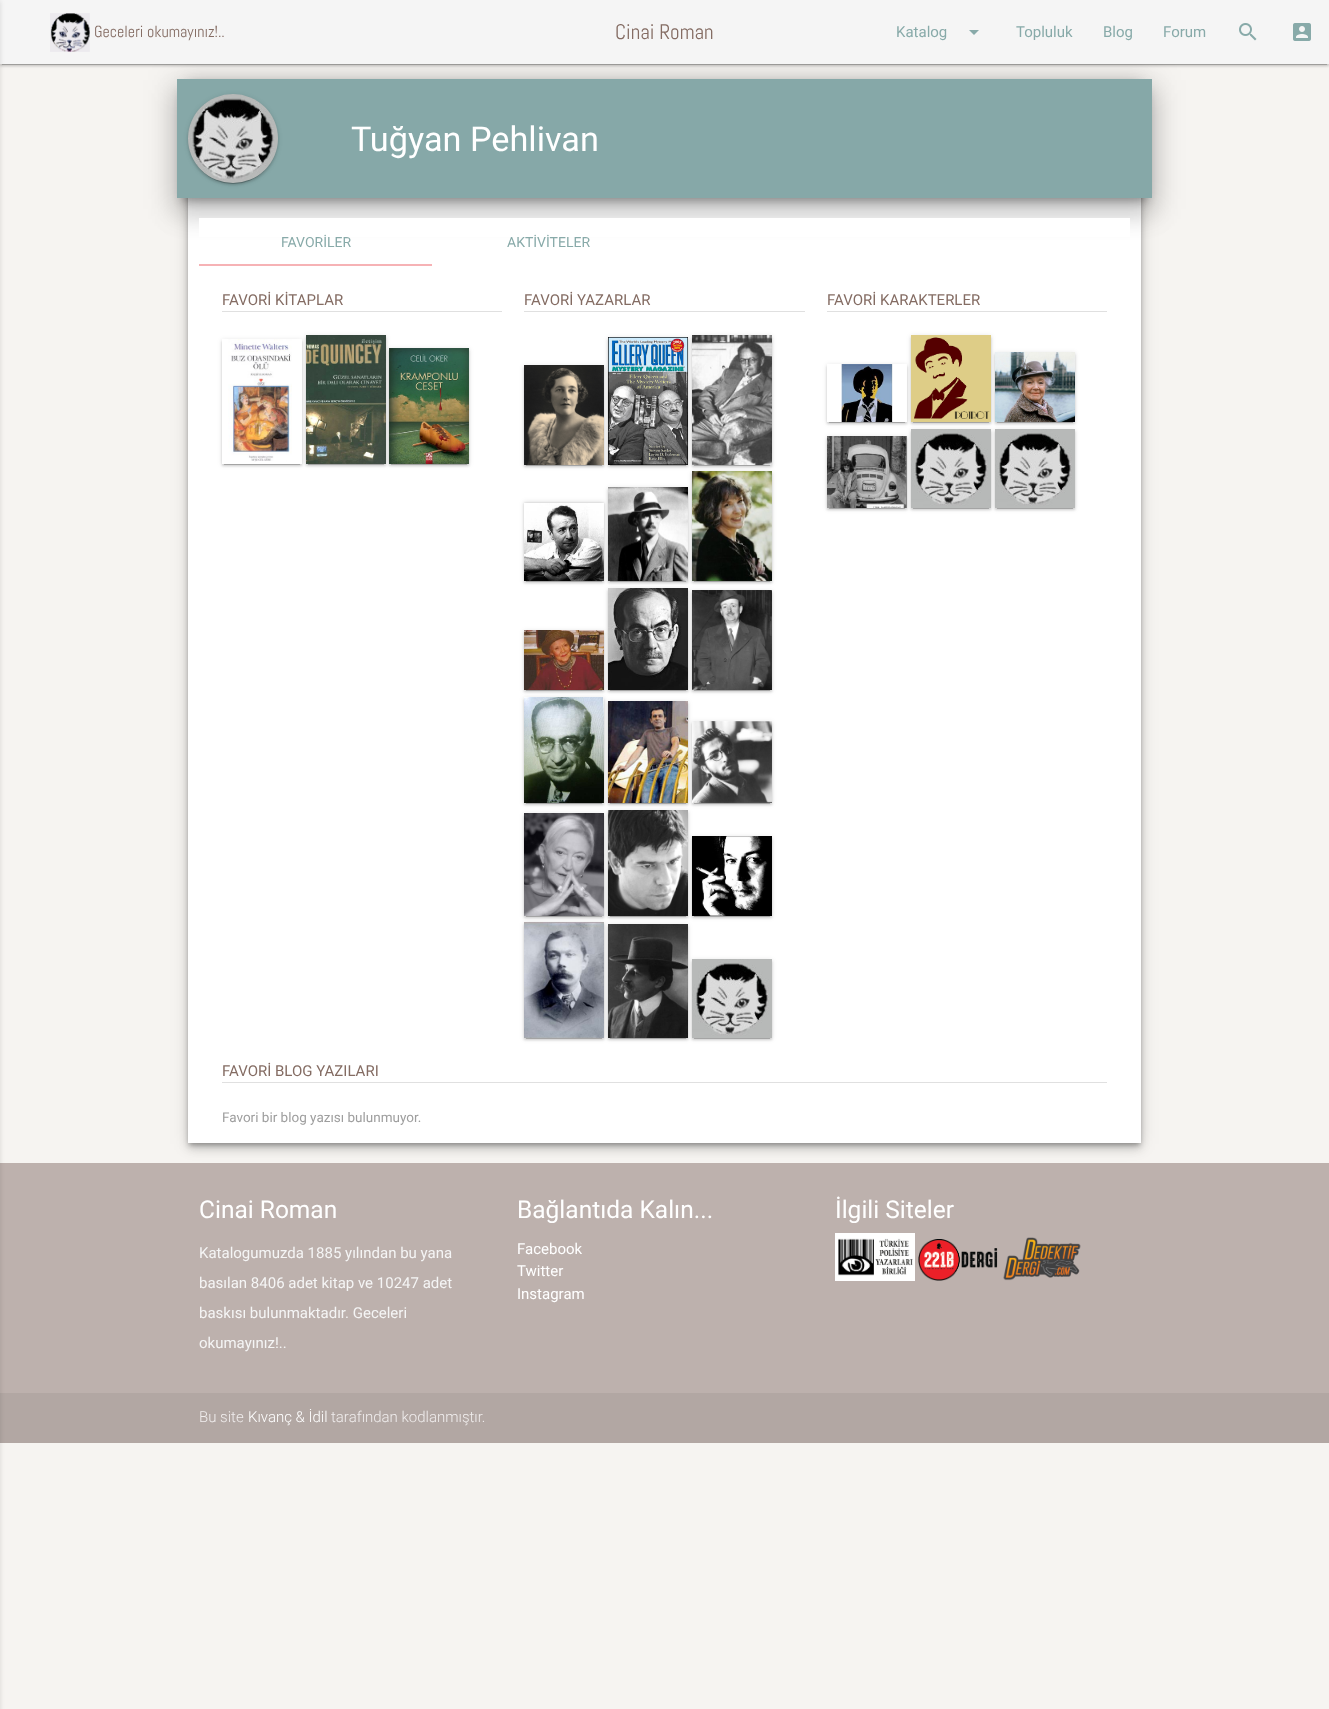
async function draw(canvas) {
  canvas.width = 1329;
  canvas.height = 1709;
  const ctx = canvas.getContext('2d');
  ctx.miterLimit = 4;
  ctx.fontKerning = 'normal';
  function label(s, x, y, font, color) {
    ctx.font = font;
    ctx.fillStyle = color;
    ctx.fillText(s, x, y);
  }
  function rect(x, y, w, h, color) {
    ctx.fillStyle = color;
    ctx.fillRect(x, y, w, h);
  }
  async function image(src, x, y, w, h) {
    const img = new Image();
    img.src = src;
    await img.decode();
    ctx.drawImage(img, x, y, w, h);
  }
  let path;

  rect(0, 0, 1329, 1709, '#f6f4f1');
  ctx.fillStyle = '#00000033';
  ctx.filter = 'blur(0.5px)';
  ctx.beginPath();
  ctx.rect(2, 5, 1325, 60);
  ctx.fill();
  ctx.filter = 'none';
  ctx.fillStyle = '#0000001f';
  ctx.filter = 'blur(2.5px)';
  ctx.beginPath();
  ctx.rect(0, 1, 1329, 64);
  ctx.fill();
  ctx.filter = 'none';
  ctx.fillStyle = '#00000024';
  ctx.filter = 'blur(1px)';
  ctx.beginPath();
  ctx.rect(0, 2, 1329, 64);
  ctx.fill();
  ctx.filter = 'none';
  ctx.fillStyle = '#0000001f';
  ctx.filter = 'blur(9px)';
  ctx.beginPath();
  ctx.rect(188, 80, 953, 1064);
  ctx.fill();
  ctx.filter = 'none';
  ctx.fillStyle = '#0000004d';
  ctx.filter = 'blur(2.5px)';
  ctx.beginPath();
  ctx.rect(189, 83, 951, 1062);
  ctx.fill();
  ctx.filter = 'none';
  ctx.fillStyle = '#00000024';
  ctx.filter = 'blur(5px)';
  ctx.beginPath();
  ctx.rect(188, 85, 953, 1064);
  ctx.fill();
  ctx.filter = 'none';
  rect(188, 198, 953, 945, '#fff');
  ctx.fillStyle = '#0000001f';
  ctx.filter = 'blur(15px)';
  ctx.beginPath();
  ctx.rect(172, 80, 985, 129);
  ctx.fill();
  ctx.filter = 'none';
  ctx.fillStyle = '#00000024';
  ctx.filter = 'blur(12px)';
  ctx.beginPath();
  ctx.rect(175, 93, 979, 123);
  ctx.fill();
  ctx.filter = 'none';
  rect(0, 0, 1329, 64, '#f5f5f5');
  rect(0, 1163, 1329, 230, '#bdb1ad');
  rect(0, 1393, 1329, 50, '#b2a7a3');
  ctx.fillStyle = '#0000001f';
  ctx.filter = 'blur(2.5px)';
  ctx.beginPath();
  ctx.rect(-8, 1, 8, 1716);
  ctx.fill();
  ctx.filter = 'none';
  await image('assets/img1.png', 50, 13, 40, 39);
  label('Geceleri okumayınız!..', 94, 37, '16px Abel', '#846c63');
  label('Cinai Roman', 615, 39, '21px Abel', '#846c63');
  label('Katalog', 896, 37, '15px Roboto', '#88aaa9');
  path = new Path2D('M969 30H979L974 35Z');
  ctx.fill(path);
  label('Topluluk', 1016, 37, '15px Roboto', '#88aaa9');
  label('Blog', 1103, 37, '15px Roboto', '#88aaa9');
  label('Forum', 1163, 37, '15px Roboto', '#88aaa9');
  await image('assets/img2.png', 1239, 23, 18, 18);
  await image('assets/img3.png', 1293, 23, 18, 18);
  ctx.fillStyle = '#0000004d';
  ctx.filter = 'blur(5px)';
  ctx.beginPath();
  ctx.rect(182, 92, 965, 109);
  ctx.fill();
  ctx.filter = 'none';
  rect(177, 79, 975, 119, '#86a8a8');
  ctx.fillStyle = '#00000033';
  ctx.filter = 'blur(0.5px)';
  ctx.beginPath();
  ctx.roundRect(190, 99, 86, 85, 42.5);
  ctx.fill();
  ctx.filter = 'none';
  ctx.fillStyle = '#0000001f';
  ctx.filter = 'blur(2.5px)';
  ctx.beginPath();
  ctx.roundRect(188, 95, 90, 89, 44.5);
  ctx.fill();
  ctx.filter = 'none';
  ctx.fillStyle = '#00000024';
  ctx.filter = 'blur(1px)';
  ctx.beginPath();
  ctx.roundRect(188, 96, 90, 89, 44.5);
  ctx.fill();
  ctx.filter = 'none';
  await image('assets/img4.png', 188, 94, 90, 89);
  label('Tuğyan Pehlivan', 351, 151, '34.25px Roboto', '#fff');
  rect(199, 218, 931, 19, '#fff');
  label('FAVORİLER', 281, 247, '14px Roboto', '#88aaa9');
  label('AKTİVİTELER', 507, 247, '14px Roboto', '#88aaa9');
  rect(199, 264, 233, 2, '#f6b2b5');
  label('FAVORİ KİTAPLAR', 222, 305, '15px Roboto', '#846c63');
  rect(222, 311, 280, 1, '#e0e0e0');
  ctx.save();
  path = new Path2D('M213 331H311V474H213ZM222 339H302V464H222Z');
  ctx.clip(path, 'evenodd');
  ctx.fillStyle = '#0000001f';
  ctx.filter = 'blur(2.5px)';
  ctx.beginPath();
  ctx.rect(222, 340, 80, 125);
  ctx.fill();
  ctx.filter = 'none';
  ctx.restore();
  ctx.fillStyle = '#0000001f';
  ctx.filter = 'blur(2.5px)';
  ctx.beginPath();
  ctx.rect(306, 336, 80, 129);
  ctx.fill();
  ctx.filter = 'none';
  ctx.fillStyle = '#00000024';
  ctx.filter = 'blur(1px)';
  ctx.beginPath();
  ctx.rect(306, 337, 80, 129);
  ctx.fill();
  ctx.filter = 'none';
  ctx.save();
  path = new Path2D('M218 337H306V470H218ZM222 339H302V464H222Z');
  ctx.clip(path, 'evenodd');
  ctx.filter = 'blur(1px)';
  ctx.beginPath();
  ctx.rect(222, 341, 80, 125);
  ctx.fill();
  ctx.filter = 'none';
  ctx.restore();
  ctx.fillStyle = '#00000033';
  ctx.filter = 'blur(0.5px)';
  ctx.beginPath();
  ctx.rect(308, 340, 76, 125);
  ctx.fill();
  ctx.filter = 'none';
  await image('assets/img5.png', 306, 335, 80, 129);
  ctx.save();
  ctx.beginPath();
  ctx.rect(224, 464, 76, 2);
  ctx.clip();
  ctx.filter = 'blur(0.5px)';
  ctx.beginPath();
  ctx.rect(224, 344, 76, 121);
  ctx.fill();
  ctx.filter = 'none';
  ctx.restore();
  await image('assets/img6.png', 228, 339, 64, 123);
  ctx.fillStyle = '#0000001f';
  ctx.filter = 'blur(2.5px)';
  ctx.beginPath();
  ctx.rect(389, 349, 80, 116);
  ctx.fill();
  ctx.filter = 'none';
  ctx.fillStyle = '#00000024';
  ctx.filter = 'blur(1px)';
  ctx.beginPath();
  ctx.rect(389, 350, 80, 116);
  ctx.fill();
  ctx.filter = 'none';
  ctx.fillStyle = '#00000033';
  ctx.filter = 'blur(0.5px)';
  ctx.beginPath();
  ctx.rect(391, 353, 76, 112);
  ctx.fill();
  ctx.filter = 'none';
  await image('assets/img7.png', 389, 348, 80, 116);
  label('FAVORİ YAZARLAR', 524, 305, '15px Roboto', '#846c63');
  rect(524, 311, 281, 1, '#e0e0e0');
  ctx.fillStyle = '#0000001f';
  ctx.filter = 'blur(2.5px)';
  ctx.beginPath();
  ctx.rect(524, 366, 80, 100);
  ctx.fill();
  ctx.filter = 'none';
  ctx.fillStyle = '#00000024';
  ctx.filter = 'blur(1px)';
  ctx.beginPath();
  ctx.rect(524, 367, 80, 100);
  ctx.fill();
  ctx.filter = 'none';
  ctx.fillStyle = '#00000033';
  ctx.filter = 'blur(0.5px)';
  ctx.beginPath();
  ctx.rect(526, 370, 76, 96);
  ctx.fill();
  ctx.filter = 'none';
  await image('assets/img10.png', 524, 365, 80, 100);
  ctx.fillStyle = '#0000001f';
  ctx.filter = 'blur(2.5px)';
  ctx.beginPath();
  ctx.rect(608, 338, 80, 128);
  ctx.fill();
  ctx.filter = 'none';
  ctx.fillStyle = '#00000024';
  ctx.filter = 'blur(1px)';
  ctx.beginPath();
  ctx.rect(608, 339, 80, 128);
  ctx.fill();
  ctx.filter = 'none';
  ctx.fillStyle = '#00000033';
  ctx.filter = 'blur(0.5px)';
  ctx.beginPath();
  ctx.rect(610, 342, 76, 124);
  ctx.fill();
  ctx.filter = 'none';
  await image('assets/img8.png', 608, 337, 80, 128);
  ctx.fillStyle = '#0000001f';
  ctx.filter = 'blur(2.5px)';
  ctx.beginPath();
  ctx.rect(692, 336, 80, 130);
  ctx.fill();
  ctx.filter = 'none';
  ctx.fillStyle = '#00000024';
  ctx.filter = 'blur(1px)';
  ctx.beginPath();
  ctx.rect(692, 337, 80, 130);
  ctx.fill();
  ctx.filter = 'none';
  ctx.fillStyle = '#00000033';
  ctx.filter = 'blur(0.5px)';
  ctx.beginPath();
  ctx.rect(694, 340, 76, 126);
  ctx.fill();
  ctx.filter = 'none';
  await image('assets/img9.png', 692, 335, 80, 130);
  ctx.fillStyle = '#0000001f';
  ctx.filter = 'blur(2.5px)';
  ctx.beginPath();
  ctx.rect(524, 502, 80, 80);
  ctx.fill();
  ctx.filter = 'none';
  ctx.fillStyle = '#00000024';
  ctx.filter = 'blur(1px)';
  ctx.beginPath();
  ctx.rect(524, 503, 80, 80);
  ctx.fill();
  ctx.filter = 'none';
  ctx.fillStyle = '#00000033';
  ctx.filter = 'blur(0.5px)';
  ctx.beginPath();
  ctx.rect(526, 506, 76, 76);
  ctx.fill();
  ctx.filter = 'none';
  await image('assets/img13.png', 524, 503, 80, 78);
  ctx.fillStyle = '#0000001f';
  ctx.filter = 'blur(2.5px)';
  ctx.beginPath();
  ctx.rect(608, 488, 80, 94);
  ctx.fill();
  ctx.filter = 'none';
  ctx.fillStyle = '#00000024';
  ctx.filter = 'blur(1px)';
  ctx.beginPath();
  ctx.rect(608, 489, 80, 94);
  ctx.fill();
  ctx.filter = 'none';
  ctx.fillStyle = '#00000033';
  ctx.filter = 'blur(0.5px)';
  ctx.beginPath();
  ctx.rect(610, 492, 76, 90);
  ctx.fill();
  ctx.filter = 'none';
  await image('assets/img12.png', 608, 487, 80, 94);
  ctx.fillStyle = '#0000001f';
  ctx.filter = 'blur(2.5px)';
  ctx.beginPath();
  ctx.rect(692, 472, 80, 110);
  ctx.fill();
  ctx.filter = 'none';
  ctx.fillStyle = '#00000024';
  ctx.filter = 'blur(1px)';
  ctx.beginPath();
  ctx.rect(692, 473, 80, 110);
  ctx.fill();
  ctx.filter = 'none';
  ctx.fillStyle = '#00000033';
  ctx.filter = 'blur(0.5px)';
  ctx.beginPath();
  ctx.rect(694, 476, 76, 106);
  ctx.fill();
  ctx.filter = 'none';
  await image('assets/img11.png', 692, 471, 80, 110);
  ctx.fillStyle = '#0000001f';
  ctx.filter = 'blur(2.5px)';
  ctx.beginPath();
  ctx.rect(524, 631, 80, 60);
  ctx.fill();
  ctx.filter = 'none';
  ctx.fillStyle = '#00000024';
  ctx.filter = 'blur(1px)';
  ctx.beginPath();
  ctx.rect(524, 632, 80, 60);
  ctx.fill();
  ctx.filter = 'none';
  ctx.fillStyle = '#00000033';
  ctx.filter = 'blur(0.5px)';
  ctx.beginPath();
  ctx.rect(526, 635, 76, 56);
  ctx.fill();
  ctx.filter = 'none';
  await image('assets/img16.png', 524, 630, 80, 60);
  ctx.fillStyle = '#0000001f';
  ctx.filter = 'blur(2.5px)';
  ctx.beginPath();
  ctx.rect(608, 589, 80, 102);
  ctx.fill();
  ctx.filter = 'none';
  ctx.fillStyle = '#00000024';
  ctx.filter = 'blur(1px)';
  ctx.beginPath();
  ctx.rect(608, 590, 80, 102);
  ctx.fill();
  ctx.filter = 'none';
  ctx.fillStyle = '#00000033';
  ctx.filter = 'blur(0.5px)';
  ctx.beginPath();
  ctx.rect(610, 593, 76, 98);
  ctx.fill();
  ctx.filter = 'none';
  await image('assets/img14.png', 608, 588, 80, 102);
  ctx.fillStyle = '#0000001f';
  ctx.filter = 'blur(2.5px)';
  ctx.beginPath();
  ctx.rect(692, 591, 80, 100);
  ctx.fill();
  ctx.filter = 'none';
  ctx.fillStyle = '#00000024';
  ctx.filter = 'blur(1px)';
  ctx.beginPath();
  ctx.rect(692, 592, 80, 100);
  ctx.fill();
  ctx.filter = 'none';
  ctx.fillStyle = '#00000033';
  ctx.filter = 'blur(0.5px)';
  ctx.beginPath();
  ctx.rect(694, 595, 76, 96);
  ctx.fill();
  ctx.filter = 'none';
  await image('assets/img15.png', 692, 590, 80, 100);
  ctx.fillStyle = '#0000001f';
  ctx.filter = 'blur(2.5px)';
  ctx.beginPath();
  ctx.rect(524, 698, 80, 106);
  ctx.fill();
  ctx.filter = 'none';
  ctx.fillStyle = '#00000024';
  ctx.filter = 'blur(1px)';
  ctx.beginPath();
  ctx.rect(524, 699, 80, 106);
  ctx.fill();
  ctx.filter = 'none';
  ctx.fillStyle = '#00000033';
  ctx.filter = 'blur(0.5px)';
  ctx.beginPath();
  ctx.rect(526, 702, 76, 102);
  ctx.fill();
  ctx.filter = 'none';
  await image('assets/img17.png', 524, 697, 80, 106);
  ctx.fillStyle = '#0000001f';
  ctx.filter = 'blur(2.5px)';
  ctx.beginPath();
  ctx.rect(608, 702, 80, 102);
  ctx.fill();
  ctx.filter = 'none';
  ctx.fillStyle = '#00000024';
  ctx.filter = 'blur(1px)';
  ctx.beginPath();
  ctx.rect(608, 703, 80, 102);
  ctx.fill();
  ctx.filter = 'none';
  ctx.fillStyle = '#00000033';
  ctx.filter = 'blur(0.5px)';
  ctx.beginPath();
  ctx.rect(610, 706, 76, 98);
  ctx.fill();
  ctx.filter = 'none';
  await image('assets/img18.png', 608, 701, 80, 102);
  ctx.fillStyle = '#0000001f';
  ctx.filter = 'blur(2.5px)';
  ctx.beginPath();
  ctx.rect(692, 722, 80, 82);
  ctx.fill();
  ctx.filter = 'none';
  ctx.fillStyle = '#00000024';
  ctx.filter = 'blur(1px)';
  ctx.beginPath();
  ctx.rect(692, 723, 80, 82);
  ctx.fill();
  ctx.filter = 'none';
  ctx.fillStyle = '#00000033';
  ctx.filter = 'blur(0.5px)';
  ctx.beginPath();
  ctx.rect(694, 726, 76, 78);
  ctx.fill();
  ctx.filter = 'none';
  await image('assets/img19.png', 692, 721, 80, 82);
  ctx.fillStyle = '#0000001f';
  ctx.filter = 'blur(2.5px)';
  ctx.beginPath();
  ctx.rect(524, 814, 80, 103);
  ctx.fill();
  ctx.filter = 'none';
  ctx.fillStyle = '#00000024';
  ctx.filter = 'blur(1px)';
  ctx.beginPath();
  ctx.rect(524, 815, 80, 103);
  ctx.fill();
  ctx.filter = 'none';
  ctx.fillStyle = '#00000033';
  ctx.filter = 'blur(0.5px)';
  ctx.beginPath();
  ctx.rect(526, 818, 76, 99);
  ctx.fill();
  ctx.filter = 'none';
  await image('assets/img21.png', 524, 813, 80, 103);
  ctx.fillStyle = '#0000001f';
  ctx.filter = 'blur(2.5px)';
  ctx.beginPath();
  ctx.rect(608, 811, 80, 106);
  ctx.fill();
  ctx.filter = 'none';
  ctx.fillStyle = '#00000024';
  ctx.filter = 'blur(1px)';
  ctx.beginPath();
  ctx.rect(608, 812, 80, 106);
  ctx.fill();
  ctx.filter = 'none';
  ctx.fillStyle = '#00000033';
  ctx.filter = 'blur(0.5px)';
  ctx.beginPath();
  ctx.rect(610, 815, 76, 102);
  ctx.fill();
  ctx.filter = 'none';
  await image('assets/img20.png', 608, 810, 80, 106);
  ctx.fillStyle = '#0000001f';
  ctx.filter = 'blur(2.5px)';
  ctx.beginPath();
  ctx.rect(692, 837, 80, 80);
  ctx.fill();
  ctx.filter = 'none';
  ctx.fillStyle = '#00000024';
  ctx.filter = 'blur(1px)';
  ctx.beginPath();
  ctx.rect(692, 838, 80, 80);
  ctx.fill();
  ctx.filter = 'none';
  ctx.fillStyle = '#00000033';
  ctx.filter = 'blur(0.5px)';
  ctx.beginPath();
  ctx.rect(694, 841, 76, 76);
  ctx.fill();
  ctx.filter = 'none';
  await image('assets/img22.png', 692, 836, 80, 80);
  ctx.fillStyle = '#0000001f';
  ctx.filter = 'blur(2.5px)';
  ctx.beginPath();
  ctx.rect(524, 923, 80, 116);
  ctx.fill();
  ctx.filter = 'none';
  ctx.fillStyle = '#00000024';
  ctx.filter = 'blur(1px)';
  ctx.beginPath();
  ctx.rect(524, 924, 80, 116);
  ctx.fill();
  ctx.filter = 'none';
  ctx.fillStyle = '#00000033';
  ctx.filter = 'blur(0.5px)';
  ctx.beginPath();
  ctx.rect(526, 927, 76, 112);
  ctx.fill();
  ctx.filter = 'none';
  await image('assets/img23.png', 524, 922, 80, 116);
  ctx.fillStyle = '#0000001f';
  ctx.filter = 'blur(2.5px)';
  ctx.beginPath();
  ctx.rect(608, 925, 80, 114);
  ctx.fill();
  ctx.filter = 'none';
  ctx.fillStyle = '#00000024';
  ctx.filter = 'blur(1px)';
  ctx.beginPath();
  ctx.rect(608, 926, 80, 114);
  ctx.fill();
  ctx.filter = 'none';
  ctx.fillStyle = '#00000033';
  ctx.filter = 'blur(0.5px)';
  ctx.beginPath();
  ctx.rect(610, 929, 76, 110);
  ctx.fill();
  ctx.filter = 'none';
  await image('assets/img24.png', 608, 924, 80, 114);
  ctx.fillStyle = '#0000001f';
  ctx.filter = 'blur(2.5px)';
  ctx.beginPath();
  ctx.rect(692, 960, 80, 79);
  ctx.fill();
  ctx.filter = 'none';
  ctx.fillStyle = '#00000024';
  ctx.filter = 'blur(1px)';
  ctx.beginPath();
  ctx.rect(692, 961, 80, 79);
  ctx.fill();
  ctx.filter = 'none';
  ctx.fillStyle = '#00000033';
  ctx.filter = 'blur(0.5px)';
  ctx.beginPath();
  ctx.rect(694, 964, 76, 75);
  ctx.fill();
  ctx.filter = 'none';
  await image('assets/img25.png', 692, 959, 80, 79);
  label('FAVORİ KARAKTERLER', 827, 305, '15px Roboto', '#846c63');
  rect(827, 311, 280, 1, '#e0e0e0');
  ctx.fillStyle = '#0000001f';
  ctx.filter = 'blur(2.5px)';
  ctx.beginPath();
  ctx.rect(911, 336, 80, 87);
  ctx.fill();
  ctx.filter = 'none';
  ctx.fillStyle = '#00000024';
  ctx.filter = 'blur(1px)';
  ctx.beginPath();
  ctx.rect(911, 337, 80, 87);
  ctx.fill();
  ctx.filter = 'none';
  ctx.fillStyle = '#00000033';
  ctx.filter = 'blur(0.5px)';
  ctx.beginPath();
  ctx.rect(913, 340, 76, 83);
  ctx.fill();
  ctx.filter = 'none';
  ctx.save();
  path = new Path2D('M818 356H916V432H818ZM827 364H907V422H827Z');
  ctx.clip(path, 'evenodd');
  ctx.fillStyle = '#0000001f';
  ctx.filter = 'blur(2.5px)';
  ctx.beginPath();
  ctx.rect(827, 365, 80, 58);
  ctx.fill();
  ctx.filter = 'none';
  ctx.restore();
  await image('assets/img26.png', 911, 335, 80, 87);
  ctx.fillStyle = '#0000001f';
  ctx.filter = 'blur(2.5px)';
  ctx.beginPath();
  ctx.rect(995, 353, 80, 70);
  ctx.fill();
  ctx.filter = 'none';
  ctx.fillStyle = '#00000024';
  ctx.filter = 'blur(1px)';
  ctx.beginPath();
  ctx.rect(995, 354, 80, 70);
  ctx.fill();
  ctx.filter = 'none';
  ctx.fillStyle = '#00000033';
  ctx.filter = 'blur(0.5px)';
  ctx.beginPath();
  ctx.rect(997, 357, 76, 66);
  ctx.fill();
  ctx.filter = 'none';
  await image('assets/img27.png', 995, 352, 80, 70);
  ctx.save();
  path = new Path2D('M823 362H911V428H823ZM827 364H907V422H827Z');
  ctx.clip(path, 'evenodd');
  ctx.fillStyle = '#00000024';
  ctx.filter = 'blur(1px)';
  ctx.beginPath();
  ctx.rect(827, 366, 80, 58);
  ctx.fill();
  ctx.filter = 'none';
  ctx.restore();
  ctx.save();
  ctx.beginPath();
  ctx.rect(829, 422, 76, 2);
  ctx.clip();
  ctx.filter = 'blur(0.5px)';
  ctx.beginPath();
  ctx.rect(829, 369, 76, 54);
  ctx.fill();
  ctx.filter = 'none';
  ctx.restore();
  await image('assets/img28.png', 841, 364, 52, 58);
  ctx.fillStyle = '#0000001f';
  ctx.filter = 'blur(2.5px)';
  ctx.beginPath();
  ctx.rect(827, 437, 80, 72);
  ctx.fill();
  ctx.filter = 'none';
  ctx.fillStyle = '#00000024';
  ctx.filter = 'blur(1px)';
  ctx.beginPath();
  ctx.rect(827, 438, 80, 72);
  ctx.fill();
  ctx.filter = 'none';
  ctx.fillStyle = '#00000033';
  ctx.filter = 'blur(0.5px)';
  ctx.beginPath();
  ctx.rect(829, 441, 76, 68);
  ctx.fill();
  ctx.filter = 'none';
  await image('assets/img30.png', 827, 436, 80, 72);
  ctx.fillStyle = '#0000001f';
  ctx.filter = 'blur(2.5px)';
  ctx.beginPath();
  ctx.rect(911, 430, 80, 79);
  ctx.fill();
  ctx.filter = 'none';
  ctx.fillStyle = '#00000024';
  ctx.filter = 'blur(1px)';
  ctx.beginPath();
  ctx.rect(911, 431, 80, 79);
  ctx.fill();
  ctx.filter = 'none';
  ctx.fillStyle = '#00000033';
  ctx.filter = 'blur(0.5px)';
  ctx.beginPath();
  ctx.rect(913, 434, 76, 75);
  ctx.fill();
  ctx.filter = 'none';
  await image('assets/img29.png', 911, 429, 80, 79);
  ctx.fillStyle = '#0000001f';
  ctx.filter = 'blur(2.5px)';
  ctx.beginPath();
  ctx.rect(995, 430, 80, 79);
  ctx.fill();
  ctx.filter = 'none';
  ctx.fillStyle = '#00000024';
  ctx.filter = 'blur(1px)';
  ctx.beginPath();
  ctx.rect(995, 431, 80, 79);
  ctx.fill();
  ctx.filter = 'none';
  ctx.fillStyle = '#00000033';
  ctx.filter = 'blur(0.5px)';
  ctx.beginPath();
  ctx.rect(997, 434, 76, 75);
  ctx.fill();
  ctx.filter = 'none';
  await image('assets/img29.png', 995, 429, 80, 79);
  label('FAVORİ BLOG YAZILARI', 222, 1076, '15px Roboto', '#846c63');
  rect(222, 1082, 885, 1, '#e0e0e0');
  label('Favori bir blog yazısı bulunmuyor.', 222, 1122, '13.5px Roboto', '#9e9e9e');
  label('Cinai Roman', 199, 1218, '24.5px Roboto', '#fff');
  label('Katalogumuzda 1885 yılından bu yana', 199, 1258, '15px Roboto', '#f5f5f5');
  label('basılan 8406 adet kitap ve 10247 adet', 199, 1288, '15px Roboto', '#f5f5f5');
  label('baskısı bulunmaktadır. Geceleri', 199, 1318, '15px Roboto', '#f5f5f5');
  label('okumayınız!..', 199, 1348, '15px Roboto', '#f5f5f5');
  label('Bağlantıda Kalın...', 517, 1218, '24.5px Roboto', '#fff');
  label('Facebook', 517, 1254, '15px Roboto', '#fff');
  label('Twitter', 517, 1276, '15px Roboto', '#fff');
  label('Instagram', 517, 1299, '15px Roboto', '#fff');
  label('İlgili Siteler', 835, 1218, '24.5px Roboto', '#fff');
  await image('assets/img31.png', 835, 1233, 80, 48);
  await image('assets/img32.png', 918, 1239, 80, 42);
  await image('assets/img33.png', 1003, 1237, 78, 44);
  label('Bu site', 199, 1422, '300 15px Roboto', '#f0eded');
  label('Kıvanç & İdil', 248, 1422, '300 15px Roboto', '#fff');
  label('tarafından kodlanmıştır.', 331, 1422, '300 15px Roboto', '#f0eded');
}

draw(document.querySelector('canvas'));
